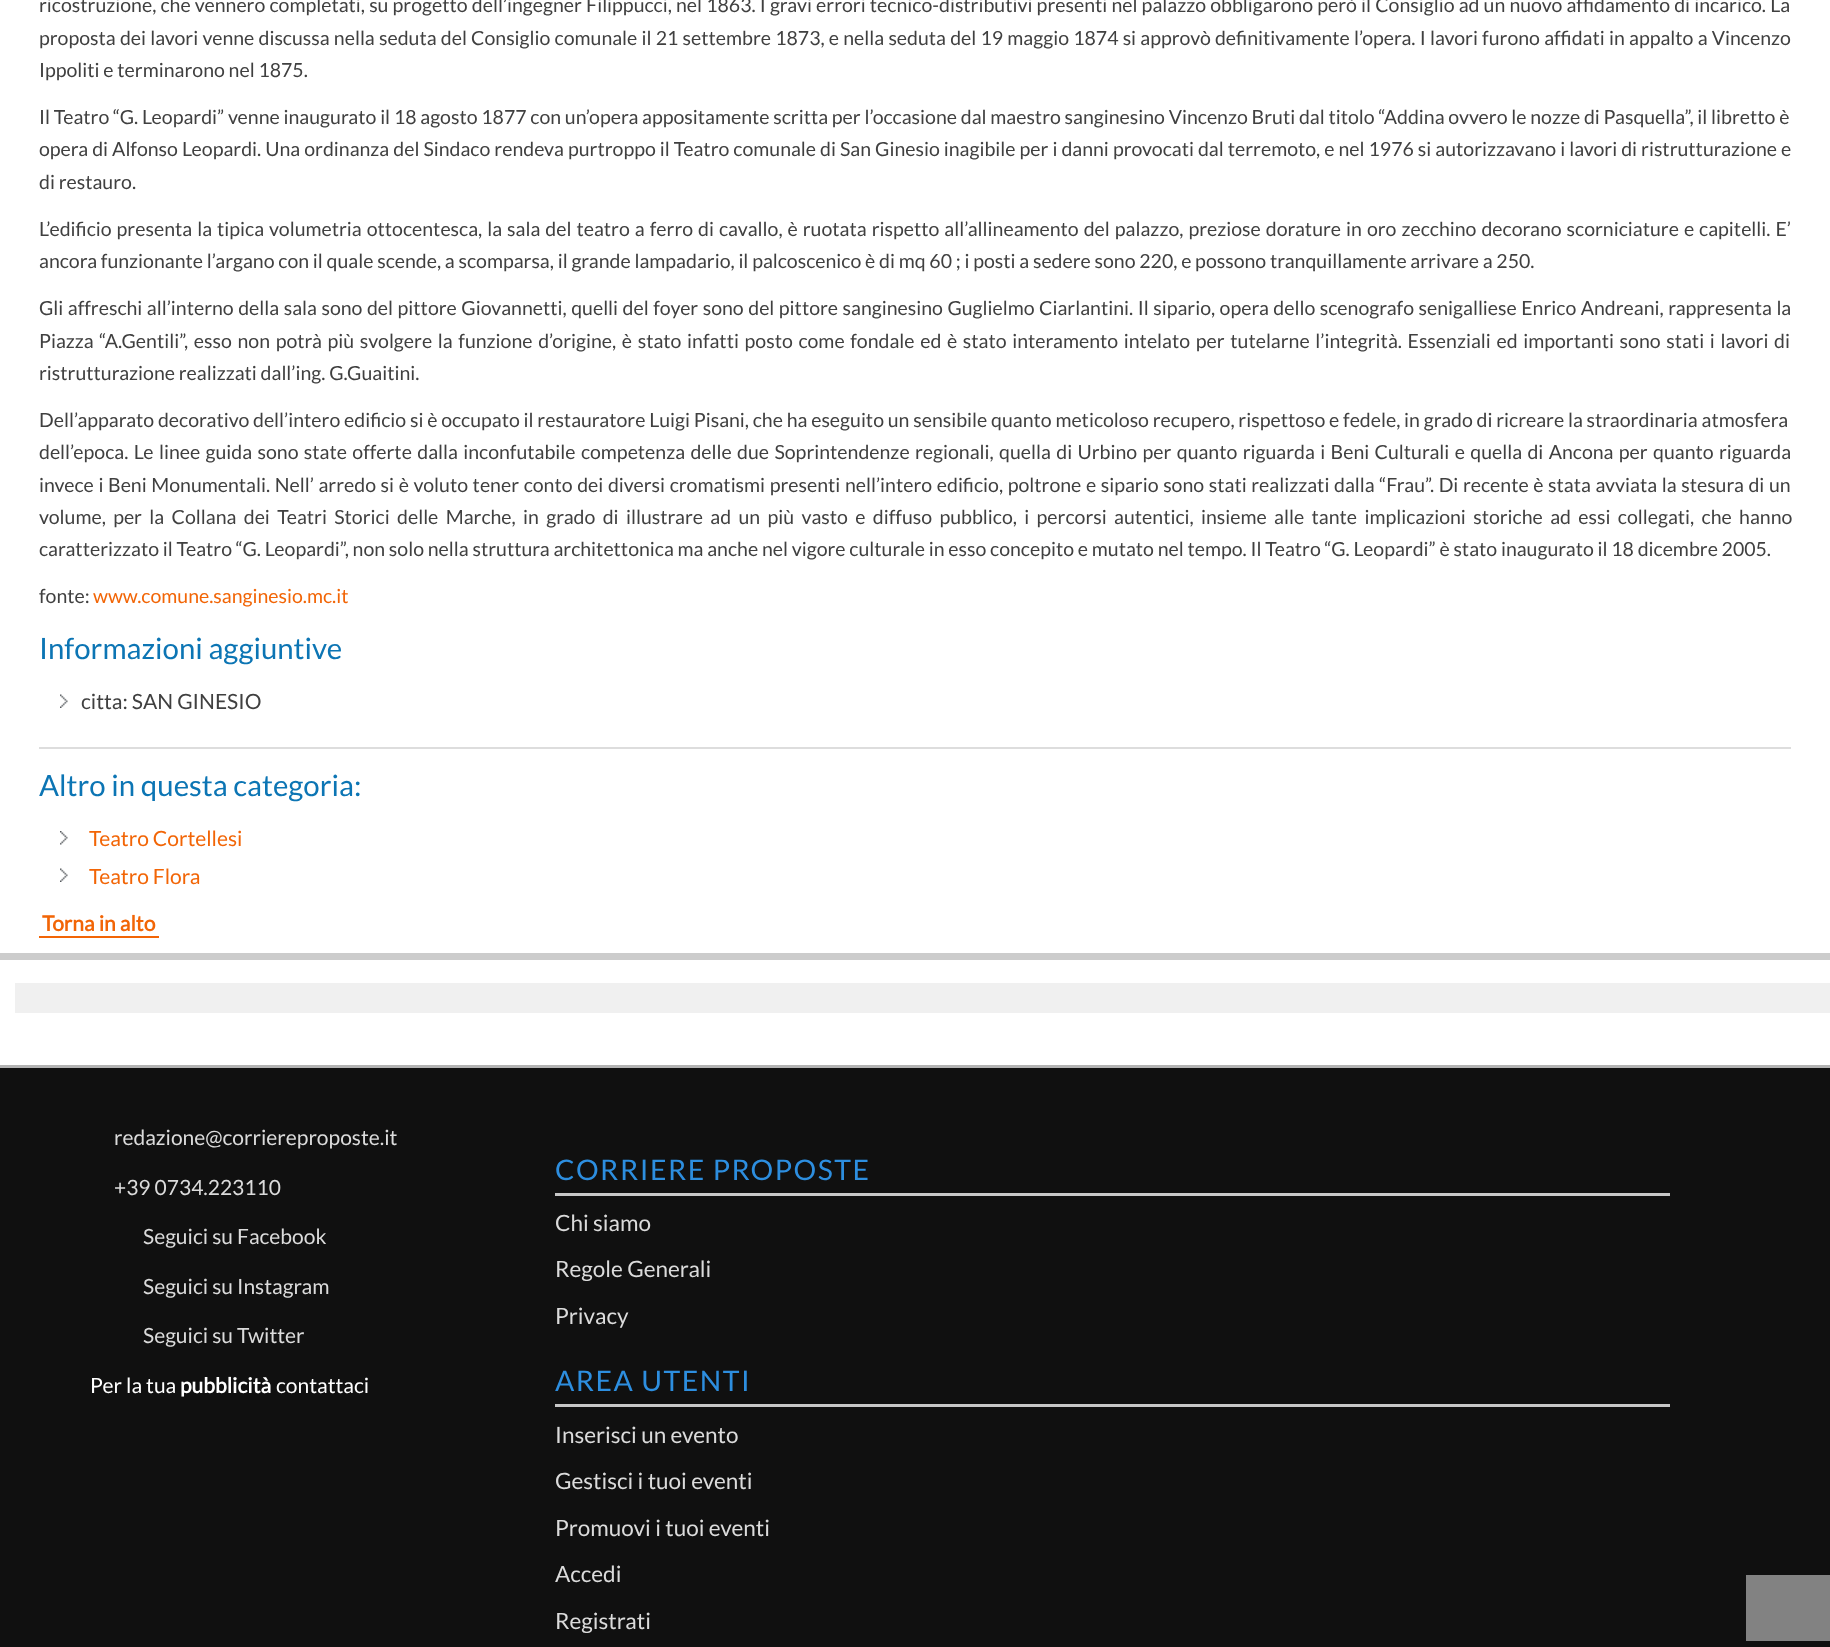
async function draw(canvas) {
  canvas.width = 1830;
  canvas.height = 1647;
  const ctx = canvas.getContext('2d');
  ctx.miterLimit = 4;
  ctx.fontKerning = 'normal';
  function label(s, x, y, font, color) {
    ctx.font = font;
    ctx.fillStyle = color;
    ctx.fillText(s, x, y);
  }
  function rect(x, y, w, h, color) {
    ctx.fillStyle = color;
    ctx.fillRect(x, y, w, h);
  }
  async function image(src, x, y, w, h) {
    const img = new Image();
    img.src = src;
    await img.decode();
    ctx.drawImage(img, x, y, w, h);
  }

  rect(0, 0, 1830, 1647, '#fff');
  rect(0, 953, 1830, 7, '#ccc');
  ctx.wordSpacing = '0.4px';
  label('ricostruzione, che vennero completati, su progetto dell’ingegner Filippucci, nel 1863. I gravi errori tecnico-distributivi presenti nel palazzo obbligarono però il Consiglio ad un nuovo affidamento di incarico. La', 39, 12, '19.5px Lato', '#404040');
  ctx.wordSpacing = '0.45px';
  label('proposta dei lavori venne discussa nella seduta del Consiglio comunale il 21 settembre 1873, e nella seduta del 19 maggio 1874 si approvò definitivamente l’opera. I lavori furono affidati in appalto a Vincenzo', 39, 45, '19.5px Lato', '#404040');
  ctx.wordSpacing = '0px';
  label('Ippoliti e terminarono nel 1875.', 39, 77, '19.5px Lato', '#404040');
  label('Il Teatro “G. Leopardi” venne inaugurato il 18 agosto 1877 con un’opera appositamente scritta per l’occasione dal maestro sanginesino Vincenzo Bruti dal titolo “Addina ovvero le nozze di Pasquella”, il libretto è', 39, 124, '19.5px Lato', '#404040');
  ctx.wordSpacing = '0.25px';
  label('opera di Alfonso Leopardi. Una ordinanza del Sindaco rendeva purtroppo il Teatro comunale di San Ginesio inagibile per i danni provocati dal terremoto, e nel 1976 si autorizzavano i lavori di ristrutturazione e', 39, 156, '19.5px Lato', '#404040');
  ctx.wordSpacing = '0px';
  label('di restauro.', 39, 189, '19.5px Lato', '#404040');
  ctx.wordSpacing = '1.25px';
  label('L’edificio presenta la tipica volumetria ottocentesca, la sala del teatro a ferro di cavallo, è ruotata rispetto all’allineamento del palazzo, preziose dorature in oro zecchino decorano scorniciature e capitelli. E’', 39, 236, '19.5px Lato', '#404040');
  ctx.wordSpacing = '0px';
  label('ancora funzionante l’argano con il quale scende, a scomparsa, il grande lampadario, il palcoscenico è di mq 60 ; i posti a sedere sono 220, e possono tranquillamente arrivare a 250.', 39, 268, '19.5px Lato', '#404040');
  ctx.wordSpacing = '0.75px';
  label('Gli affreschi all’interno della sala sono del pittore Giovannetti, quelli del foyer sono del pittore sanginesino Guglielmo Ciarlantini. Il sipario, opera dello scenografo senigalliese Enrico Andreani, rappresenta la', 39, 315, '19.5px Lato', '#404040');
  ctx.wordSpacing = '1.9px';
  label('Piazza “A.Gentili”, esso non potrà più svolgere la funzione d’origine, è stato infatti posto come fondale ed è stato interamento intelato per tutelarne l’integrità. Essenziali ed importanti sono stati i lavori di', 39, 348, '19.5px Lato', '#404040');
  ctx.wordSpacing = '0px';
  label('ristrutturazione realizzati dall’ing. G.Guaitini.', 39, 380, '19.5px Lato', '#404040');
  label('Dell’apparato decorativo dell’intero edificio si è occupato il restauratore Luigi Pisani, che ha eseguito un sensibile quanto meticoloso recupero, rispettoso e fedele, in grado di ricreare la straordinaria atmosfera', 39, 427, '19.5px Lato', '#404040');
  ctx.wordSpacing = '1.6px';
  label('dell’epoca. Le linee guida sono state offerte dalla inconfutabile competenza delle due Soprintendenze regionali, quella di Urbino per quanto riguarda i Beni Culturali e quella di Ancona per quanto riguarda', 39, 459, '19.5px Lato', '#404040');
  ctx.wordSpacing = '0.85px';
  label('invece i Beni Monumentali. Nell’ arredo si è voluto tener conto dei diversi cromatismi presenti nell’intero edificio, poltrone e sipario sono stati realizzati dalla “Frau”. Di recente è stata avviata la stesura di un', 39, 492, '19.5px Lato', '#404040');
  ctx.wordSpacing = '3.6px';
  label('volume, per la Collana dei Teatri Storici delle Marche, in grado di illustrare ad un più vasto e diffuso pubblico, i percorsi autentici, insieme alle tante implicazioni storiche ad essi collegati, che hanno', 39, 524, '19.5px Lato', '#404040');
  ctx.wordSpacing = '0px';
  label('caratterizzato il Teatro “G. Leopardi”, non solo nella struttura architettonica ma anche nel vigore culturale in esso concepito e mutato nel tempo. Il Teatro “G. Leopardi” è stato inaugurato il 18 dicembre 2005.', 39, 556, '19.5px Lato', '#404040');
  label('fonte:', 39, 603, '19.5px Lato', '#404040');
  label('www.comune.sanginesio.mc.it', 93, 603, '19.5px Lato', '#f26506');
  label('Informazioni aggiuntive', 39, 659, '29.4px Lato', '#0c75b4');
  await image('assets/img1.png', 60, 694, 8, 14);
  label('citta: SAN GINESIO', 81, 709, '21px Lato', '#404040');
  rect(39, 747, 1752, 2, '#ddd');
  label('Altro in questa categoria:', 39, 796, '29.4px Lato', '#0c75b4');
  await image('assets/img2.png', 60, 831, 8, 14);
  label('Teatro Cortellesi', 89, 846, '21px Lato', '#f26506');
  await image('assets/img1.png', 60, 868, 8, 14);
  label('Teatro Flora', 89, 884, '21px Lato', '#f26506');
  label('Torna in alto', 42, 931, 'bold 21px Lato', '#f26506');
  rect(39, 936, 120, 2, '#f26506');
  rect(15, 983, 1815, 30, '#f0f0f0');
  rect(0, 1068, 1830, 579, '#101010');
  rect(0, 1065, 1830, 3, '#b3b3b3');
  label('redazione@corriereproposte.it', 114, 1145, '21px Lato', '#dbdbdb');
  label('+39 0734.223110', 114, 1195, '21px Lato', '#dbdbdb');
  label('Seguici su Facebook', 143, 1244, '21px Lato', '#dbdbdb');
  label('Seguici su Instagram', 143, 1294, '21px Lato', '#dbdbdb');
  label('Seguici su Twitter', 143, 1343, '21px Lato', '#dbdbdb');
  label('Per la tua', 90, 1393, '21px Lato', '#fff');
  label('pubblicità', 180, 1393, 'bold 21px Lato', '#fff');
  label('contattaci', 276, 1393, '21px Lato', '#fff');
  rect(555, 1193, 1115, 3, '#c7c7c7');
  ctx.letterSpacing = '1.5px';
  label('CORRIERE PROPOSTE', 555, 1180, '28.4px Lato', '#2d8edf');
  ctx.letterSpacing = '0px';
  label('Chi siamo', 555, 1231, '22.5px Lato', '#dbdbdb');
  label('Regole Generali', 555, 1277, '22.5px Lato', '#dbdbdb');
  label('Privacy', 555, 1324, '22.5px Lato', '#dbdbdb');
  rect(555, 1404, 1115, 3, '#c7c7c7');
  ctx.letterSpacing = '1.5px';
  label('AREA UTENTI', 555, 1391, '28.4px Lato', '#2d8edf');
  ctx.letterSpacing = '0px';
  label('Inserisci un evento', 555, 1443, '22.5px Lato', '#dbdbdb');
  label('Gestisci i tuoi eventi', 555, 1489, '22.5px Lato', '#dbdbdb');
  label('Promuovi i tuoi eventi', 555, 1536, '22.5px Lato', '#dbdbdb');
  label('Accedi', 555, 1582, '22.5px Lato', '#dbdbdb');
  label('Registrati', 555, 1629, '22.5px Lato', '#dbdbdb');
  rect(1746, 1575, 84, 66, '#828282');
}

draw(document.querySelector('canvas'));
